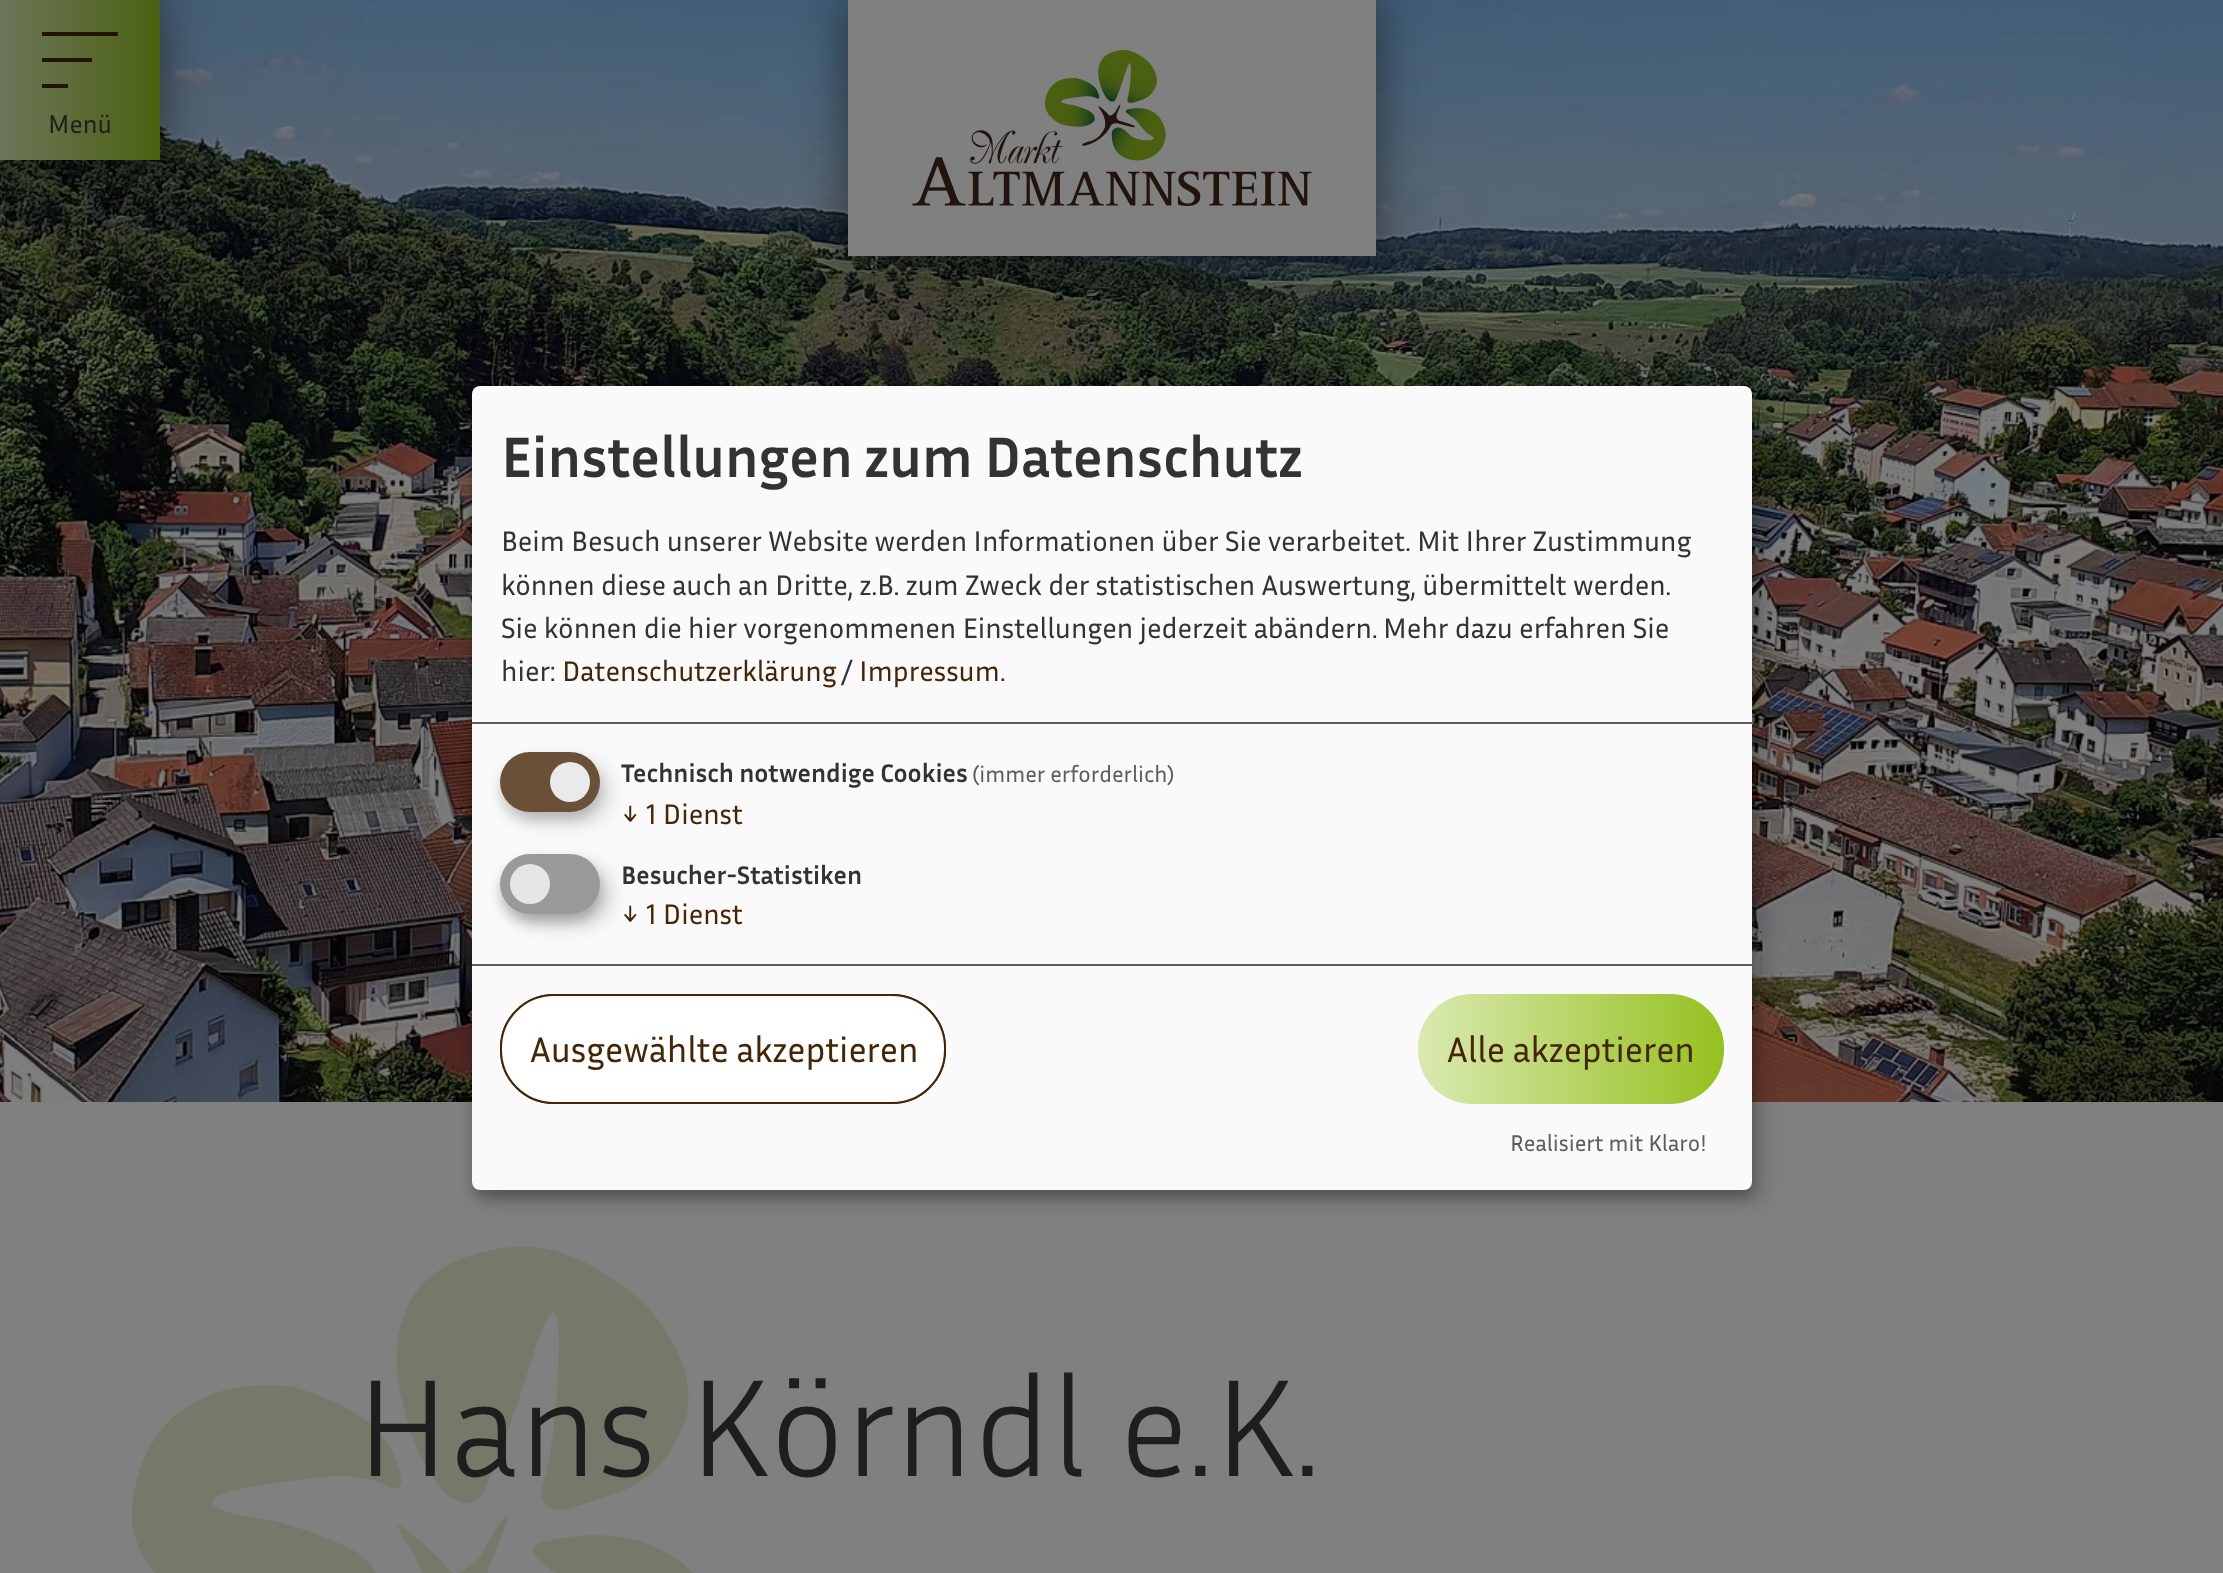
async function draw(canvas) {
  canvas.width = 2223;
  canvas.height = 1573;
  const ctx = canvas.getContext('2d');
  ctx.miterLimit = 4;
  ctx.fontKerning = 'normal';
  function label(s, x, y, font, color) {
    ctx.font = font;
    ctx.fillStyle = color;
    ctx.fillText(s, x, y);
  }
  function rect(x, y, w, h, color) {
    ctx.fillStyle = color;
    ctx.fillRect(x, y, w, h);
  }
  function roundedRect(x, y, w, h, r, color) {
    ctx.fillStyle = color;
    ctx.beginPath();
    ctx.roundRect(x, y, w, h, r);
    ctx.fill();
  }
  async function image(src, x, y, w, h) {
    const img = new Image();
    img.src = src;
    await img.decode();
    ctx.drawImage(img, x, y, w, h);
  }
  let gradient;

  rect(0, 0, 2223, 1573, '#808080');
  await image('assets/img1.png', 0, 0, 2223, 1102);
  ctx.fillStyle = '#00000080';
  ctx.filter = 'blur(25px)';
  ctx.beginPath();
  ctx.rect(0, 0, 160, 160);
  ctx.fill();
  ctx.filter = 'none';
  gradient = ctx.createLinearGradient(0, 80, 160, 80);
  gradient.addColorStop(0, '#6d7559');
  gradient.addColorStop(1, '#4b6110');
  ctx.fillStyle = gradient;
  ctx.fillRect(0, 0, 160, 160);
  rect(42, 32, 76, 4, '#231303');
  rect(42, 58, 50, 4, '#231303');
  rect(42, 84, 26, 4, '#231303');
  label('Menü', 48, 133, '26px Inria Sans', '#1e1e1e');
  ctx.fillStyle = '#00000080';
  ctx.filter = 'blur(25px)';
  ctx.beginPath();
  ctx.rect(848, 0, 528, 256);
  ctx.fill();
  ctx.filter = 'none';
  rect(848, 0, 528, 256, '#808080');
  await image('assets/img2.png', 912, 50, 400, 156);
  ctx.fillStyle = '#00000030';
  ctx.filter = 'blur(10px)';
  ctx.beginPath();
  ctx.roundRect(482, 396, 1280, 804, 8);
  ctx.fill();
  ctx.filter = 'none';
  ctx.fillStyle = '#00000033';
  ctx.filter = 'blur(6px)';
  ctx.beginPath();
  ctx.roundRect(472, 394, 1280, 804, 8);
  ctx.fill();
  ctx.filter = 'none';
  roundedRect(472, 386, 1280, 804, 8, '#fafafa');
  rect(472, 722, 1280, 2, '#5c5c5c');
  label('Einstellungen zum Datenschutz', 501, 477, 'bold 57.6px Inria Sans', '#333');
  label('Beim Besuch unserer Website werden Informationen über Sie verarbeitet. Mit Ihrer Zustimmung', 501, 551, '28.8px Inria Sans', '#333');
  label('können diese auch an Dritte, z.B. zum Zweck der statistischen Auswertung, übermittelt werden.', 501, 595, '28.8px Inria Sans', '#333');
  label('Sie können die hier vorgenommenen Einstellungen jederzeit abändern.', 501, 638, '28.8px Inria Sans', '#333');
  label('Mehr dazu erfahren Sie', 1383, 638, '28.8px Inria Sans', '#333');
  label('hier:', 501, 681, '28.8px Inria Sans', '#333');
  label('Datenschutzerklärung', 562, 681, '28.8px Inria Sans', '#452506');
  label('/', 842, 681, '28.8px Inria Sans', '#333');
  label('Impressum', 859, 681, '28.8px Inria Sans', '#452506');
  label('.', 1000, 681, '28.8px Inria Sans', '#333');
  ctx.fillStyle = '#00000026';
  ctx.filter = 'blur(10px)';
  ctx.beginPath();
  ctx.roundRect(510, 762, 100, 60, 30);
  ctx.fill();
  ctx.filter = 'none';
  ctx.fillStyle = '#32323233';
  ctx.filter = 'blur(6px)';
  ctx.beginPath();
  ctx.roundRect(500, 760, 100, 60, 30);
  ctx.fill();
  ctx.filter = 'none';
  roundedRect(500, 752, 100, 60, 30, '#695037');
  ctx.fillStyle = '#eaeaea';
  ctx.beginPath();
  ctx.arc(570, 782, 20, 0, 2 * Math.PI);
  ctx.fill();
  label('Technisch notwendige Cookies', 621, 782, 'bold 25.9px Inria Sans', '#333');
  label('(immer erforderlich)', 972, 782, '23px Inria Sans', '#5c5c5c');
  label('↓ 1 Dienst', 621, 824, '28.8px Inria Sans', '#452506');
  ctx.fillStyle = '#00000030';
  ctx.filter = 'blur(10px)';
  ctx.beginPath();
  ctx.roundRect(510, 864, 100, 60, 30);
  ctx.fill();
  ctx.filter = 'none';
  ctx.fillStyle = '#00000033';
  ctx.filter = 'blur(6px)';
  ctx.beginPath();
  ctx.roundRect(500, 862, 100, 60, 30);
  ctx.fill();
  ctx.filter = 'none';
  roundedRect(500, 854, 100, 60, 30, '#999');
  ctx.fillStyle = '#e6e6e6';
  ctx.beginPath();
  ctx.arc(530, 884, 20, 0, 2 * Math.PI);
  ctx.fill();
  label('Besucher-Statistiken', 621, 884, 'bold 25.9px Inria Sans', '#333');
  label('↓ 1 Dienst', 621, 924, '28.8px Inria Sans', '#452506');
  rect(472, 964, 1280, 2, '#5c5c5c');
  ctx.beginPath();
  ctx.roundRect(501, 995, 444, 108, 53);
  ctx.strokeStyle = '#452506';
  ctx.lineWidth = 2;
  ctx.stroke();
  ctx.fillStyle = '#fff';
  ctx.beginPath();
  ctx.roundRect(501, 995, 444, 108, 53);
  ctx.fill();
  ctx.stroke();
  label('Ausgewählte akzeptieren', 530, 1062, '36px Inria Sans', '#452506');
  gradient = ctx.createLinearGradient(1418, 1048, 1724, 1048);
  gradient.addColorStop(0, '#dae9b1');
  gradient.addColorStop(1, '#95c11f');
  ctx.fillStyle = gradient;
  ctx.beginPath();
  ctx.roundRect(1418, 994, 306, 110, 54);
  ctx.fill();
  label('Alle akzeptieren', 1447, 1062, '36px Inria Sans', '#452506');
  label('Realisiert mit Klaro!', 1510, 1151, '23px Inria Sans', '#5c5c5c');
  await image('assets/img3.png', 132, 1246, 561, 327);
  label('Hans Körndl e.K.', 355, 1476, '300 140px Inria Sans', '#1e1e1e');
}

draw(document.querySelector('canvas'));
